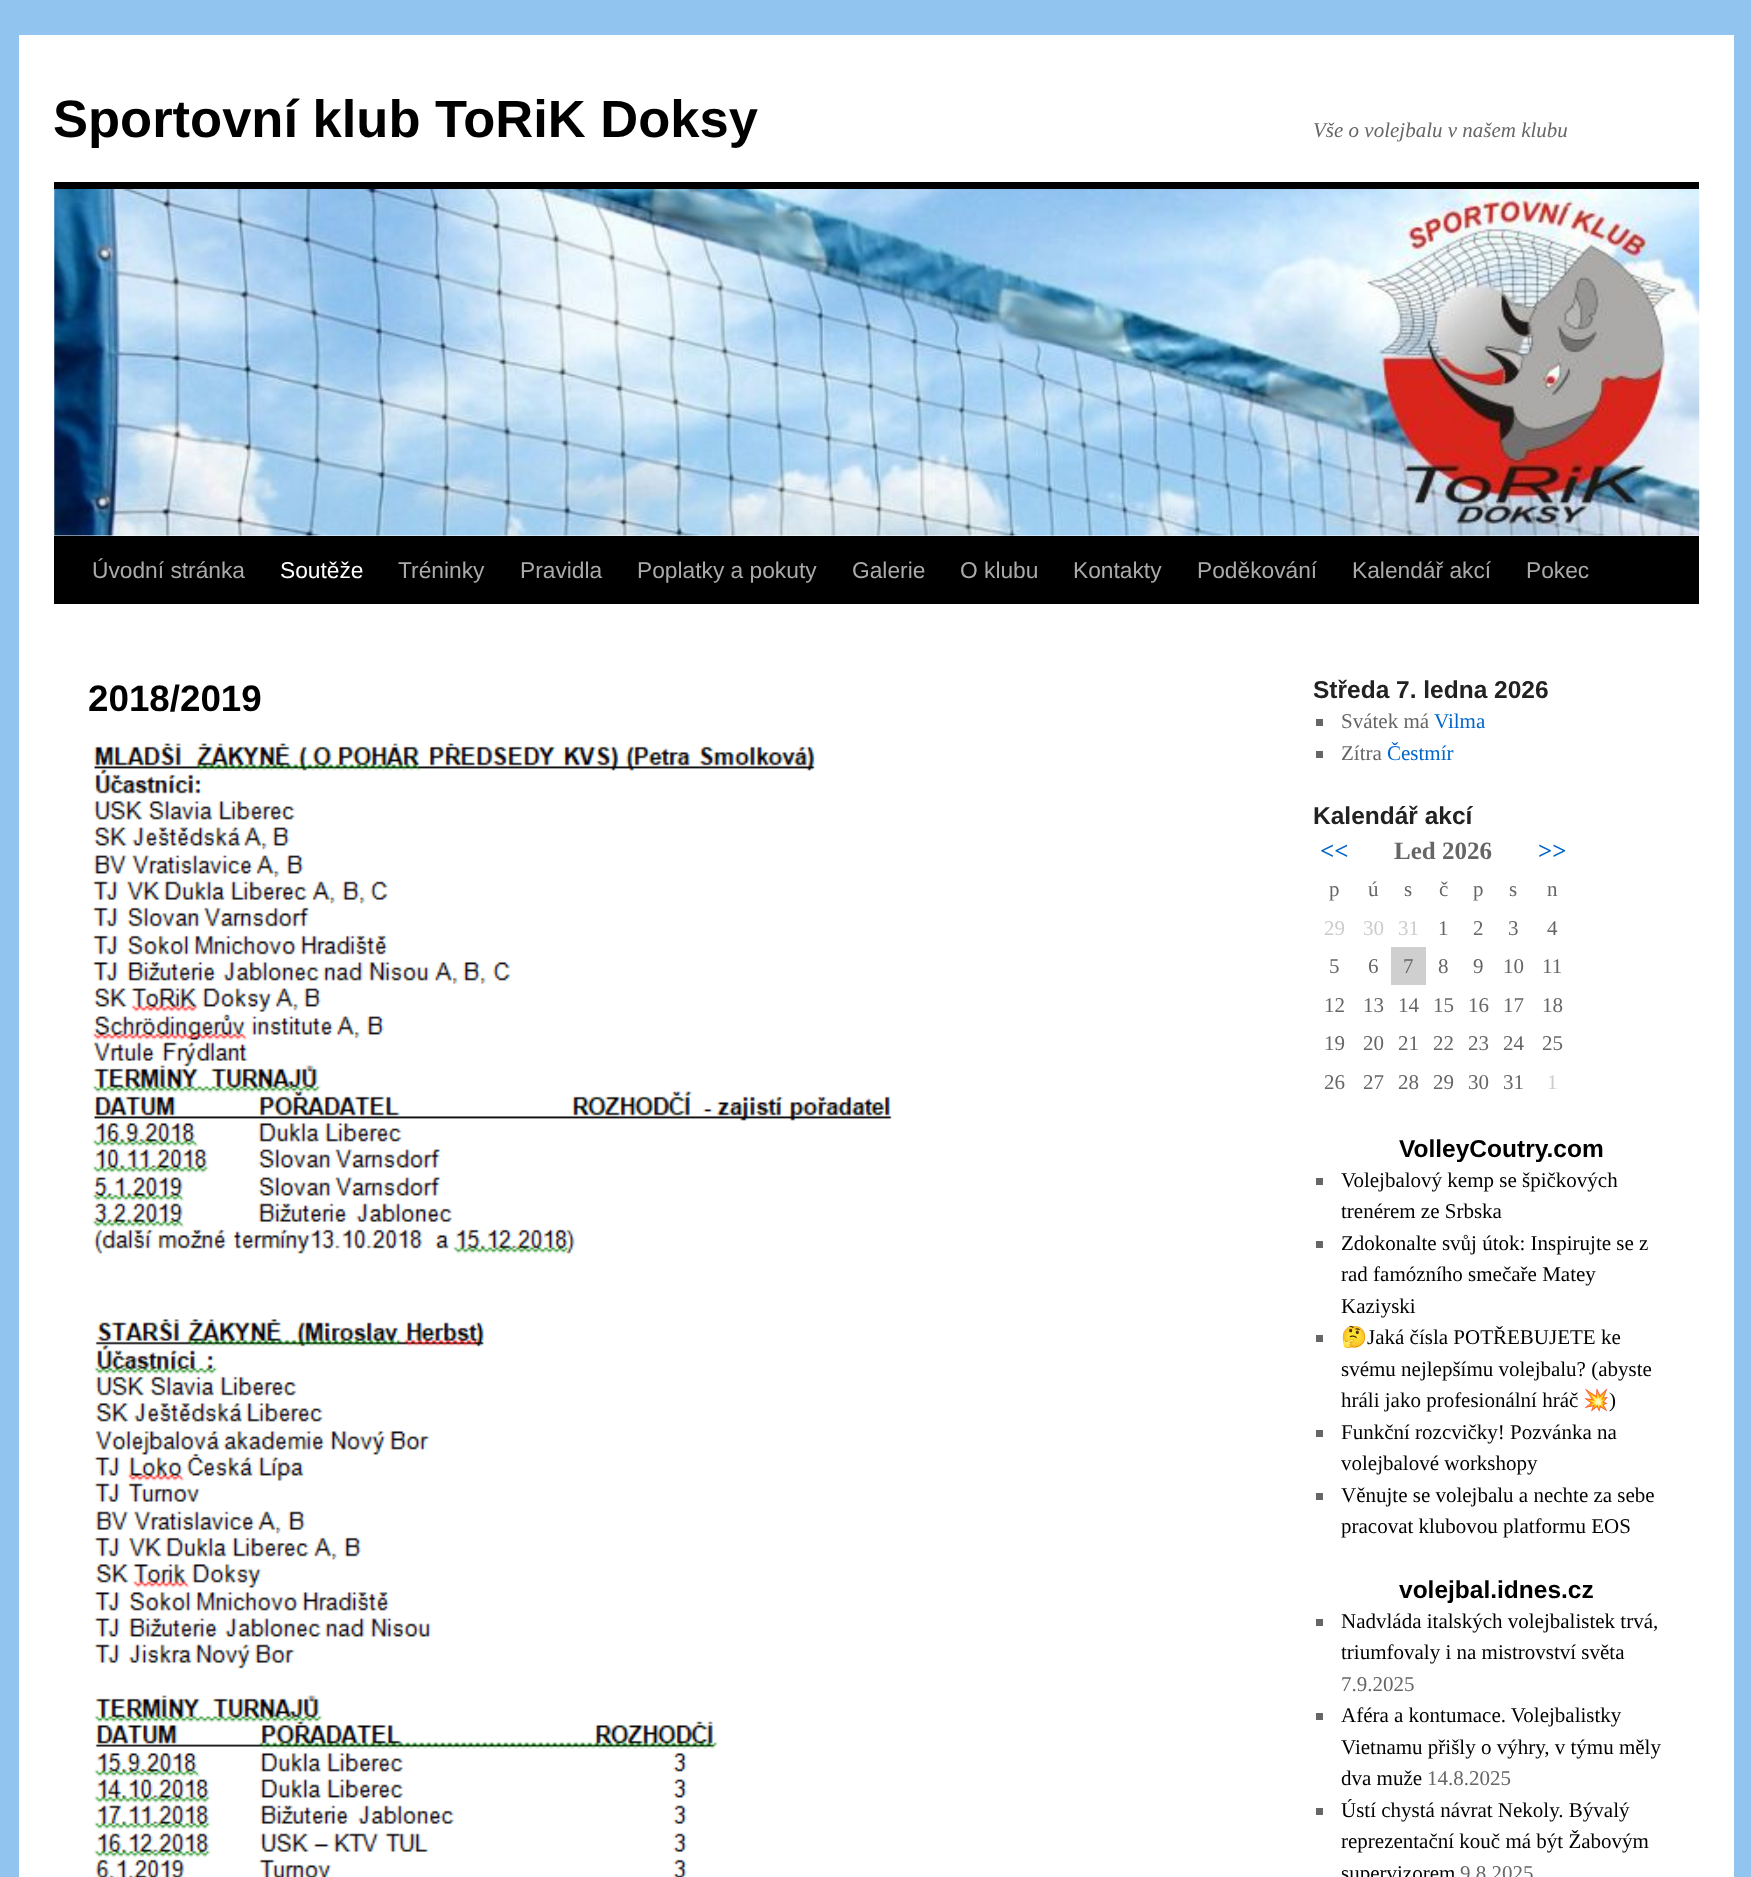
async function draw(canvas) {
  canvas.width = 1751;
  canvas.height = 1877;
  const ctx = canvas.getContext('2d');
  ctx.miterLimit = 4;
  ctx.fontKerning = 'normal';
  function label(s, x, y, font, color) {
    ctx.font = font;
    ctx.fillStyle = color;
    ctx.fillText(s, x, y);
  }
  function rect(x, y, w, h, color) {
    ctx.fillStyle = color;
    ctx.fillRect(x, y, w, h);
  }
  async function image(src, x, y, w, h) {
    const img = new Image();
    img.src = src;
    await img.decode();
    ctx.drawImage(img, x, y, w, h);
  }

  rect(0, 0, 1751, 1877, '#91c4ef');
  rect(19, 35, 1715, 1842, '#fff');
  label('Sportovní klub ToRiK Doksy', 53, 137, 'bold 52.5px Liberation Sans', '#000');
  label('Vše o volejbalu v našem klubu', 1313, 137, 'italic 21px Liberation Serif', '#666');
  rect(54, 182, 1645, 7, '#000');
  rect(54, 536, 1645, 68, '#000');
  await image('assets/img1.png', 54, 189, 1646, 347);
  label('Úvodní stránka', 92, 578, '22.75px Liberation Sans', '#aaa');
  label('Soutěže', 280, 578, '22.75px Liberation Sans', '#fff');
  label('Tréninky', 398, 578, '22.75px Liberation Sans', '#aaa');
  label('Pravidla', 520, 578, '22.75px Liberation Sans', '#aaa');
  label('Poplatky a pokuty', 637, 578, '22.75px Liberation Sans', '#aaa');
  label('Galerie', 852, 578, '22.75px Liberation Sans', '#aaa');
  label('O klubu', 960, 578, '22.75px Liberation Sans', '#aaa');
  label('Kontakty', 1073, 578, '22.75px Liberation Sans', '#aaa');
  label('Poděkování', 1197, 578, '22.75px Liberation Sans', '#aaa');
  label('Kalendář akcí', 1352, 578, '22.75px Liberation Sans', '#aaa');
  label('Pokec', 1526, 578, '22.75px Liberation Sans', '#aaa');
  label('2018/2019', 88, 711, 'bold 36.75px Liberation Sans', '#000');
  await image('assets/img2.png', 92, 743, 800, 511);
  await image('assets/img3.png', 94, 1319, 624, 558);
  label('Středa 7. ledna 2026', 1313, 698, 'bold 24.5px Liberation Sans', '#222');
  rect(1316, 719, 7, 7, '#666');
  label('Svátek má', 1341, 728, '21px Liberation Serif', '#666');
  label('Vilma', 1434, 728, '21px Liberation Serif', '#06c');
  rect(1316, 751, 7, 7, '#666');
  label('Zítra', 1341, 760, '21px Liberation Serif', '#666');
  label('Čestmír', 1387, 760, '21px Liberation Serif', '#06c');
  label('Kalendář akcí', 1313, 824, 'bold 24.5px Liberation Sans', '#222');
  label('<<', 1320, 859, 'bold 25px Liberation Serif', '#06c');
  label('Led 2026', 1394, 859, 'bold 25px Liberation Serif', '#666');
  label('>>', 1538, 859, 'bold 25px Liberation Serif', '#06c');
  label('p', 1329, 896, '21px Liberation Serif', '#666');
  label('ú', 1368, 896, '21px Liberation Serif', '#666');
  label('s', 1404, 896, '21px Liberation Serif', '#666');
  label('č', 1439, 896, '21px Liberation Serif', '#666');
  label('p', 1473, 896, '21px Liberation Serif', '#666');
  label('s', 1509, 896, '21px Liberation Serif', '#666');
  label('n', 1547, 896, '21px Liberation Serif', '#666');
  label('29', 1324, 935, '21px Liberation Serif', '#ccc');
  label('30', 1363, 935, '21px Liberation Serif', '#ccc');
  label('31', 1398, 935, '21px Liberation Serif', '#ccc');
  label('1', 1438, 935, '21px Liberation Serif', '#666');
  label('2', 1473, 935, '21px Liberation Serif', '#666');
  label('3', 1508, 935, '21px Liberation Serif', '#666');
  label('4', 1547, 935, '21px Liberation Serif', '#666');
  label('5', 1329, 973, '21px Liberation Serif', '#666');
  label('6', 1368, 973, '21px Liberation Serif', '#666');
  rect(1391, 947, 35, 38, '#cfcfcf');
  label('7', 1403, 973, '21px Liberation Serif', '#666');
  label('8', 1438, 973, '21px Liberation Serif', '#666');
  label('9', 1473, 973, '21px Liberation Serif', '#666');
  label('10', 1503, 973, '21px Liberation Serif', '#666');
  label('11', 1542, 973, '21px Liberation Serif', '#666');
  label('12', 1324, 1012, '21px Liberation Serif', '#666');
  label('13', 1363, 1012, '21px Liberation Serif', '#666');
  label('14', 1398, 1012, '21px Liberation Serif', '#666');
  label('15', 1433, 1012, '21px Liberation Serif', '#666');
  label('16', 1468, 1012, '21px Liberation Serif', '#666');
  label('17', 1503, 1012, '21px Liberation Serif', '#666');
  label('18', 1542, 1012, '21px Liberation Serif', '#666');
  label('19', 1324, 1050, '21px Liberation Serif', '#666');
  label('20', 1363, 1050, '21px Liberation Serif', '#666');
  label('21', 1398, 1050, '21px Liberation Serif', '#666');
  label('22', 1433, 1050, '21px Liberation Serif', '#666');
  label('23', 1468, 1050, '21px Liberation Serif', '#666');
  label('24', 1503, 1050, '21px Liberation Serif', '#666');
  label('25', 1542, 1050, '21px Liberation Serif', '#666');
  label('26', 1324, 1089, '21px Liberation Serif', '#666');
  label('27', 1363, 1089, '21px Liberation Serif', '#666');
  label('28', 1398, 1089, '21px Liberation Serif', '#666');
  label('29', 1433, 1089, '21px Liberation Serif', '#666');
  label('30', 1468, 1089, '21px Liberation Serif', '#666');
  label('31', 1503, 1089, '21px Liberation Serif', '#666');
  label('1', 1547, 1089, '21px Liberation Serif', '#ccc');
  label('VolleyCoutry.com', 1399, 1157, 'bold 24.5px Liberation Sans', '#000');
  rect(1316, 1178, 7, 7, '#666');
  label('Volejbalový kemp se špičkových', 1341, 1187, '21px Liberation Serif', '#000');
  label('trenérem ze Srbska', 1341, 1218, '21px Liberation Serif', '#000');
  rect(1316, 1241, 7, 7, '#666');
  label('Zdokonalte svůj útok: Inspirujte se z', 1341, 1250, '21px Liberation Serif', '#000');
  label('rad famózního smečaře Matey', 1341, 1281, '21px Liberation Serif', '#000');
  label('Kaziyski', 1341, 1313, '21px Liberation Serif', '#000');
  rect(1316, 1335, 7, 7, '#666');
  label('🤔', 1341, 1344, '21px Noto Color Emoji', '#000');
  label('Jaká čísla POTŘEBUJETE ke', 1367, 1344, '21px Liberation Serif', '#000');
  label('svému nejlepšímu volejbalu? (abyste', 1341, 1376, '21px Liberation Serif', '#000');
  label('hráli jako profesionální hráč', 1341, 1407, '21px Liberation Serif', '#000');
  label('💥', 1583, 1407, '21px Noto Color Emoji', '#000');
  label(')', 1609, 1407, '21px Liberation Serif', '#000');
  rect(1316, 1430, 7, 7, '#666');
  label('Funkční rozcvičky! Pozvánka na', 1341, 1439, '21px Liberation Serif', '#000');
  label('volejbalové workshopy', 1341, 1470, '21px Liberation Serif', '#000');
  rect(1316, 1493, 7, 7, '#666');
  label('Věnujte se volejbalu a nechte za sebe', 1341, 1502, '21px Liberation Serif', '#000');
  label('pracovat klubovou platformu EOS', 1341, 1533, '21px Liberation Serif', '#000');
  label('volejbal.idnes.cz', 1399, 1598, 'bold 24.5px Liberation Sans', '#000');
  rect(1316, 1619, 7, 7, '#666');
  label('Nadvláda italských volejbalistek trvá,', 1341, 1628, '21px Liberation Serif', '#000');
  label('triumfovaly i na mistrovství světa', 1341, 1659, '21px Liberation Serif', '#000');
  label('7.9.2025', 1341, 1691, '21px Liberation Serif', '#666');
  rect(1316, 1713, 7, 7, '#666');
  label('Aféra a kontumace. Volejbalistky', 1341, 1722, '21px Liberation Serif', '#000');
  label('Vietnamu přišly o výhry, v týmu měly', 1341, 1754, '21px Liberation Serif', '#000');
  label('dva muže', 1341, 1785, '21px Liberation Serif', '#000');
  label('14.8.2025', 1427, 1785, '21px Liberation Serif', '#666');
  rect(1316, 1808, 7, 7, '#666');
  label('Ústí chystá návrat Nekoly. Bývalý', 1341, 1817, '21px Liberation Serif', '#000');
  label('reprezentační kouč má být Žabovým', 1341, 1848, '21px Liberation Serif', '#000');
  label('supervizorem', 1341, 1880, '21px Liberation Serif', '#000');
  label('9.8.2025', 1460, 1880, '21px Liberation Serif', '#666');
}

draw(document.querySelector('canvas'));
